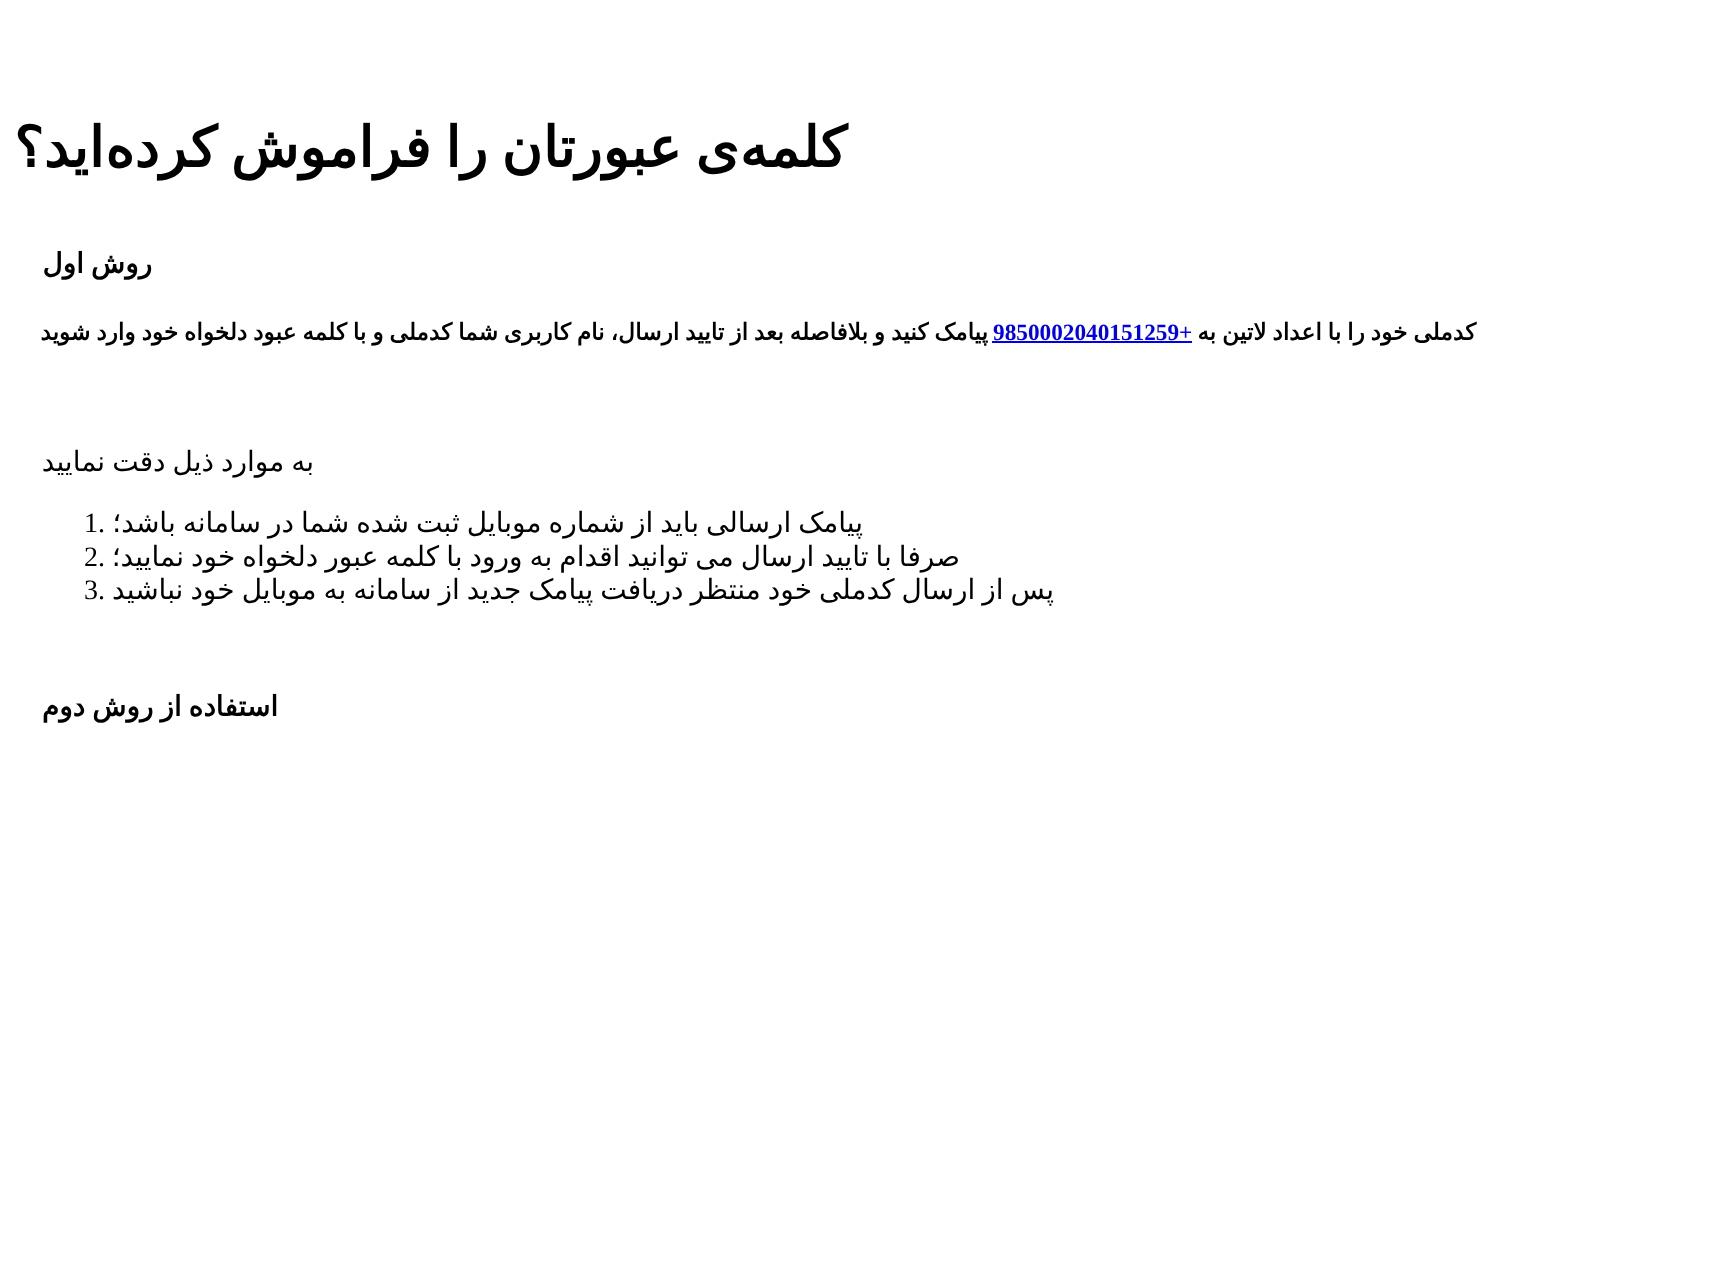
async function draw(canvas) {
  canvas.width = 1730;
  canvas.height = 1273;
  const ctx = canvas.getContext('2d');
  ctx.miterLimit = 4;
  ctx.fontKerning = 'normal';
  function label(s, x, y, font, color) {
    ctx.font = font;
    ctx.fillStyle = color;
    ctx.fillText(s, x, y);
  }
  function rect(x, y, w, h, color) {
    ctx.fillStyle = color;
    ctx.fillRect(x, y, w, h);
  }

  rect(0, 0, 1730, 1273, '#fff');
  ctx.wordSpacing = '-4px';
  ctx.direction = 'rtl';
  label('ی عبورتان را فراموش کرده', 739, 167, 'bold 56px DejaVu Sans', '#000');
  ctx.wordSpacing = '0px';
  label('کلمه', 847, 167, 'bold 56px DejaVu Sans', '#000');
  label('اید؟', 104, 167, 'bold 56px DejaVu Sans', '#000');
  ctx.wordSpacing = '-1.9px';
  label('روش اول', 152, 273, 'bold 28px DejaVu Sans', '#000');
  ctx.wordSpacing = '-1.5px';
  label('کدملی خود را با اعداد لاتین به', 1476, 340, 'bold 23.25px DejaVu Sans', '#000');
  ctx.wordSpacing = '0px';
  ctx.direction = 'ltr';
  label('9850002040151259+', 993, 340, 'bold 23.25px Liberation Serif', '#00e');
  rect(992, 341, 200, 2, '#00e');
  ctx.wordSpacing = '-1.5px';
  ctx.direction = 'rtl';
  label('پیامک کنید و بلافاصله بعد از تایید ارسال، نام کاربری شما کدملی و با کلمه عبود دلخواه خود وارد شوید', 988, 340, 'bold 23.25px DejaVu Sans', '#000');
  ctx.wordSpacing = '-1.9px';
  label('به موارد ذیل دقت نمایید', 314, 471, '28px DejaVu Sans', '#000');
  label('پیامک ارسالی باید از شماره موبایل ثبت شده شما در سامانه باشد؛', 863, 532, '28px DejaVu Sans', '#000');
  ctx.wordSpacing = '0px';
  ctx.direction = 'ltr';
  label('1.', 84, 532, '28px Liberation Serif', '#000');
  ctx.wordSpacing = '-1.9px';
  ctx.direction = 'rtl';
  label('صرفا با تایید ارسال می توانید اقدام به ورود با کلمه عبور دلخواه خود نمایید؛', 960, 566, '28px DejaVu Sans', '#000');
  ctx.wordSpacing = '0px';
  ctx.direction = 'ltr';
  label('2.', 84, 566, '28px Liberation Serif', '#000');
  ctx.wordSpacing = '-1.9px';
  ctx.direction = 'rtl';
  label('پس از ارسال کدملی خود منتظر دریافت پیامک جدید از سامانه به موبایل خود نباشید', 1054, 599, '28px DejaVu Sans', '#000');
  ctx.wordSpacing = '0px';
  ctx.direction = 'ltr';
  label('3.', 84, 599, '28px Liberation Serif', '#000');
  ctx.wordSpacing = '-1.9px';
  ctx.direction = 'rtl';
  label('استفاده از روش دوم', 278, 716, 'bold 28px DejaVu Sans', '#000');
}

draw(document.querySelector('canvas'));
